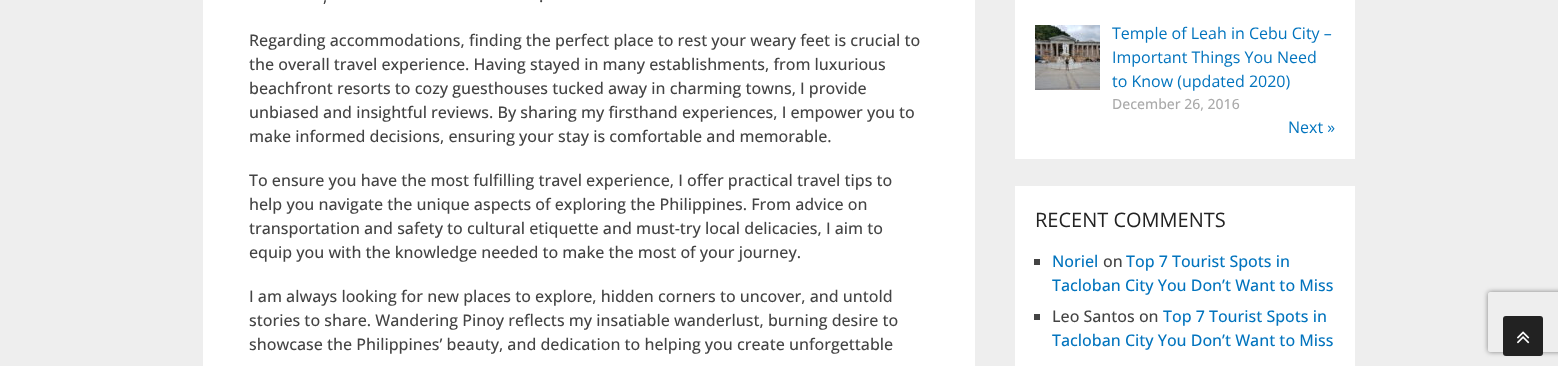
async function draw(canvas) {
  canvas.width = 1558;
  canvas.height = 366;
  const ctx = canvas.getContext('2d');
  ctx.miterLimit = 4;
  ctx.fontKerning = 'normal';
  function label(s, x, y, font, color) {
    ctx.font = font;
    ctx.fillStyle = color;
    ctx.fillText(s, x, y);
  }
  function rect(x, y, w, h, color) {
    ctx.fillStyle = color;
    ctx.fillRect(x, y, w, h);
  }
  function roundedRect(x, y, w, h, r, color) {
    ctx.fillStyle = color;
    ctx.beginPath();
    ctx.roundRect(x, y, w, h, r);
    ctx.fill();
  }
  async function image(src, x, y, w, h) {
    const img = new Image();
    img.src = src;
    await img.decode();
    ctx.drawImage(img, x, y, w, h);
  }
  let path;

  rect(0, 0, 1558, 366, '#eee');
  rect(203, 0, 772, 366, '#fff');
  label(',', 323, 2, '500 16px Open Sans', '#444');
  label('.', 539, 2, '500 16px Open Sans', '#444');
  label('Regarding accommodations, finding the perfect place to rest your weary feet is crucial to', 249, 46, '500 16px Open Sans', '#444');
  label('the overall travel experience. Having stayed in many establishments, from luxurious', 249, 70, '500 16px Open Sans', '#444');
  label('beachfront resorts to cozy guesthouses tucked away in charming towns, I provide', 249, 94, '500 16px Open Sans', '#444');
  label('unbiased and insightful reviews. By sharing my firsthand experiences, I empower you to', 249, 118, '500 16px Open Sans', '#444');
  label('make informed decisions, ensuring your stay is comfortable and memorable.', 249, 142, '500 16px Open Sans', '#444');
  label('To ensure you have the most fulfilling travel experience, I offer practical travel tips to', 249, 186, '500 16px Open Sans', '#444');
  label('help you navigate the unique aspects of exploring the Philippines. From advice on', 249, 210, '500 16px Open Sans', '#444');
  label('transportation and safety to cultural etiquette and must-try local delicacies, I aim to', 249, 234, '500 16px Open Sans', '#444');
  label('equip you with the knowledge needed to make the most of your journey.', 249, 258, '500 16px Open Sans', '#444');
  label('I am always looking for new places to explore, hidden corners to uncover, and untold', 249, 302, '500 16px Open Sans', '#444');
  label('stories to share. Wandering Pinoy reflects my insatiable wanderlust, burning desire to', 249, 326, '500 16px Open Sans', '#444');
  label('showcase the Philippines’ beauty, and dedication to helping you create unforgettable', 249, 350, '500 16px Open Sans', '#444');
  rect(1015, 0, 340, 159, '#fff');
  await image('assets/img1.png', 1035, 25, 65, 65);
  label('Temple of Leah in Cebu City –', 1112, 39, '16px Open Sans', '#0274be');
  label('Important Things You Need', 1112, 63, '16px Open Sans', '#0274be');
  label('to Know (updated 2020)', 1112, 87, '16px Open Sans', '#0274be');
  label('December 26, 2016', 1112, 109, '500 14px Open Sans', '#aaa');
  label('Next »', 1288, 133, '16px Open Sans', '#0274be');
  rect(1015, 186, 340, 180, '#fff');
  label('RECENT COMMENTS', 1035, 227, '20px Open Sans', '#222');
  rect(1034, 259, 6, 6, '#444');
  label('Noriel', 1052, 267, '500 16px Open Sans', '#0274be');
  label('on', 1103, 267, '500 16px Open Sans', '#444');
  label('Top 7 Tourist Spots in', 1126, 267, '500 16px Open Sans', '#0274be');
  label('Tacloban City You Don’t Want to Miss', 1052, 291, '500 16px Open Sans', '#0274be');
  rect(1034, 314, 6, 6, '#444');
  label('Leo Santos on', 1052, 322, '500 16px Open Sans', '#444');
  label('Top 7 Tourist Spots in', 1163, 322, '500 16px Open Sans', '#0274be');
  label('Tacloban City You Don’t Want to Miss', 1052, 346, '500 16px Open Sans', '#0274be');
  ctx.save();
  path = new Path2D('M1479 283H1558V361H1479ZM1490 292H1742C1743 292 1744 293 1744 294V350C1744 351 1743 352 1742 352H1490C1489 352 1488 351 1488 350V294C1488 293 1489 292 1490 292Z');
  ctx.clip(path, 'evenodd');
  ctx.fillStyle = '#808080';
  ctx.filter = 'blur(2.5px)';
  ctx.beginPath();
  ctx.roundRect(1488, 292, 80, 60, 2);
  ctx.fill();
  ctx.filter = 'none';
  ctx.restore();
  roundedRect(1503, 316, 40, 40, 3, '#222');
  await image('assets/img2.png', 1517, 331, 13, 13);
}

draw(document.querySelector('canvas'));
